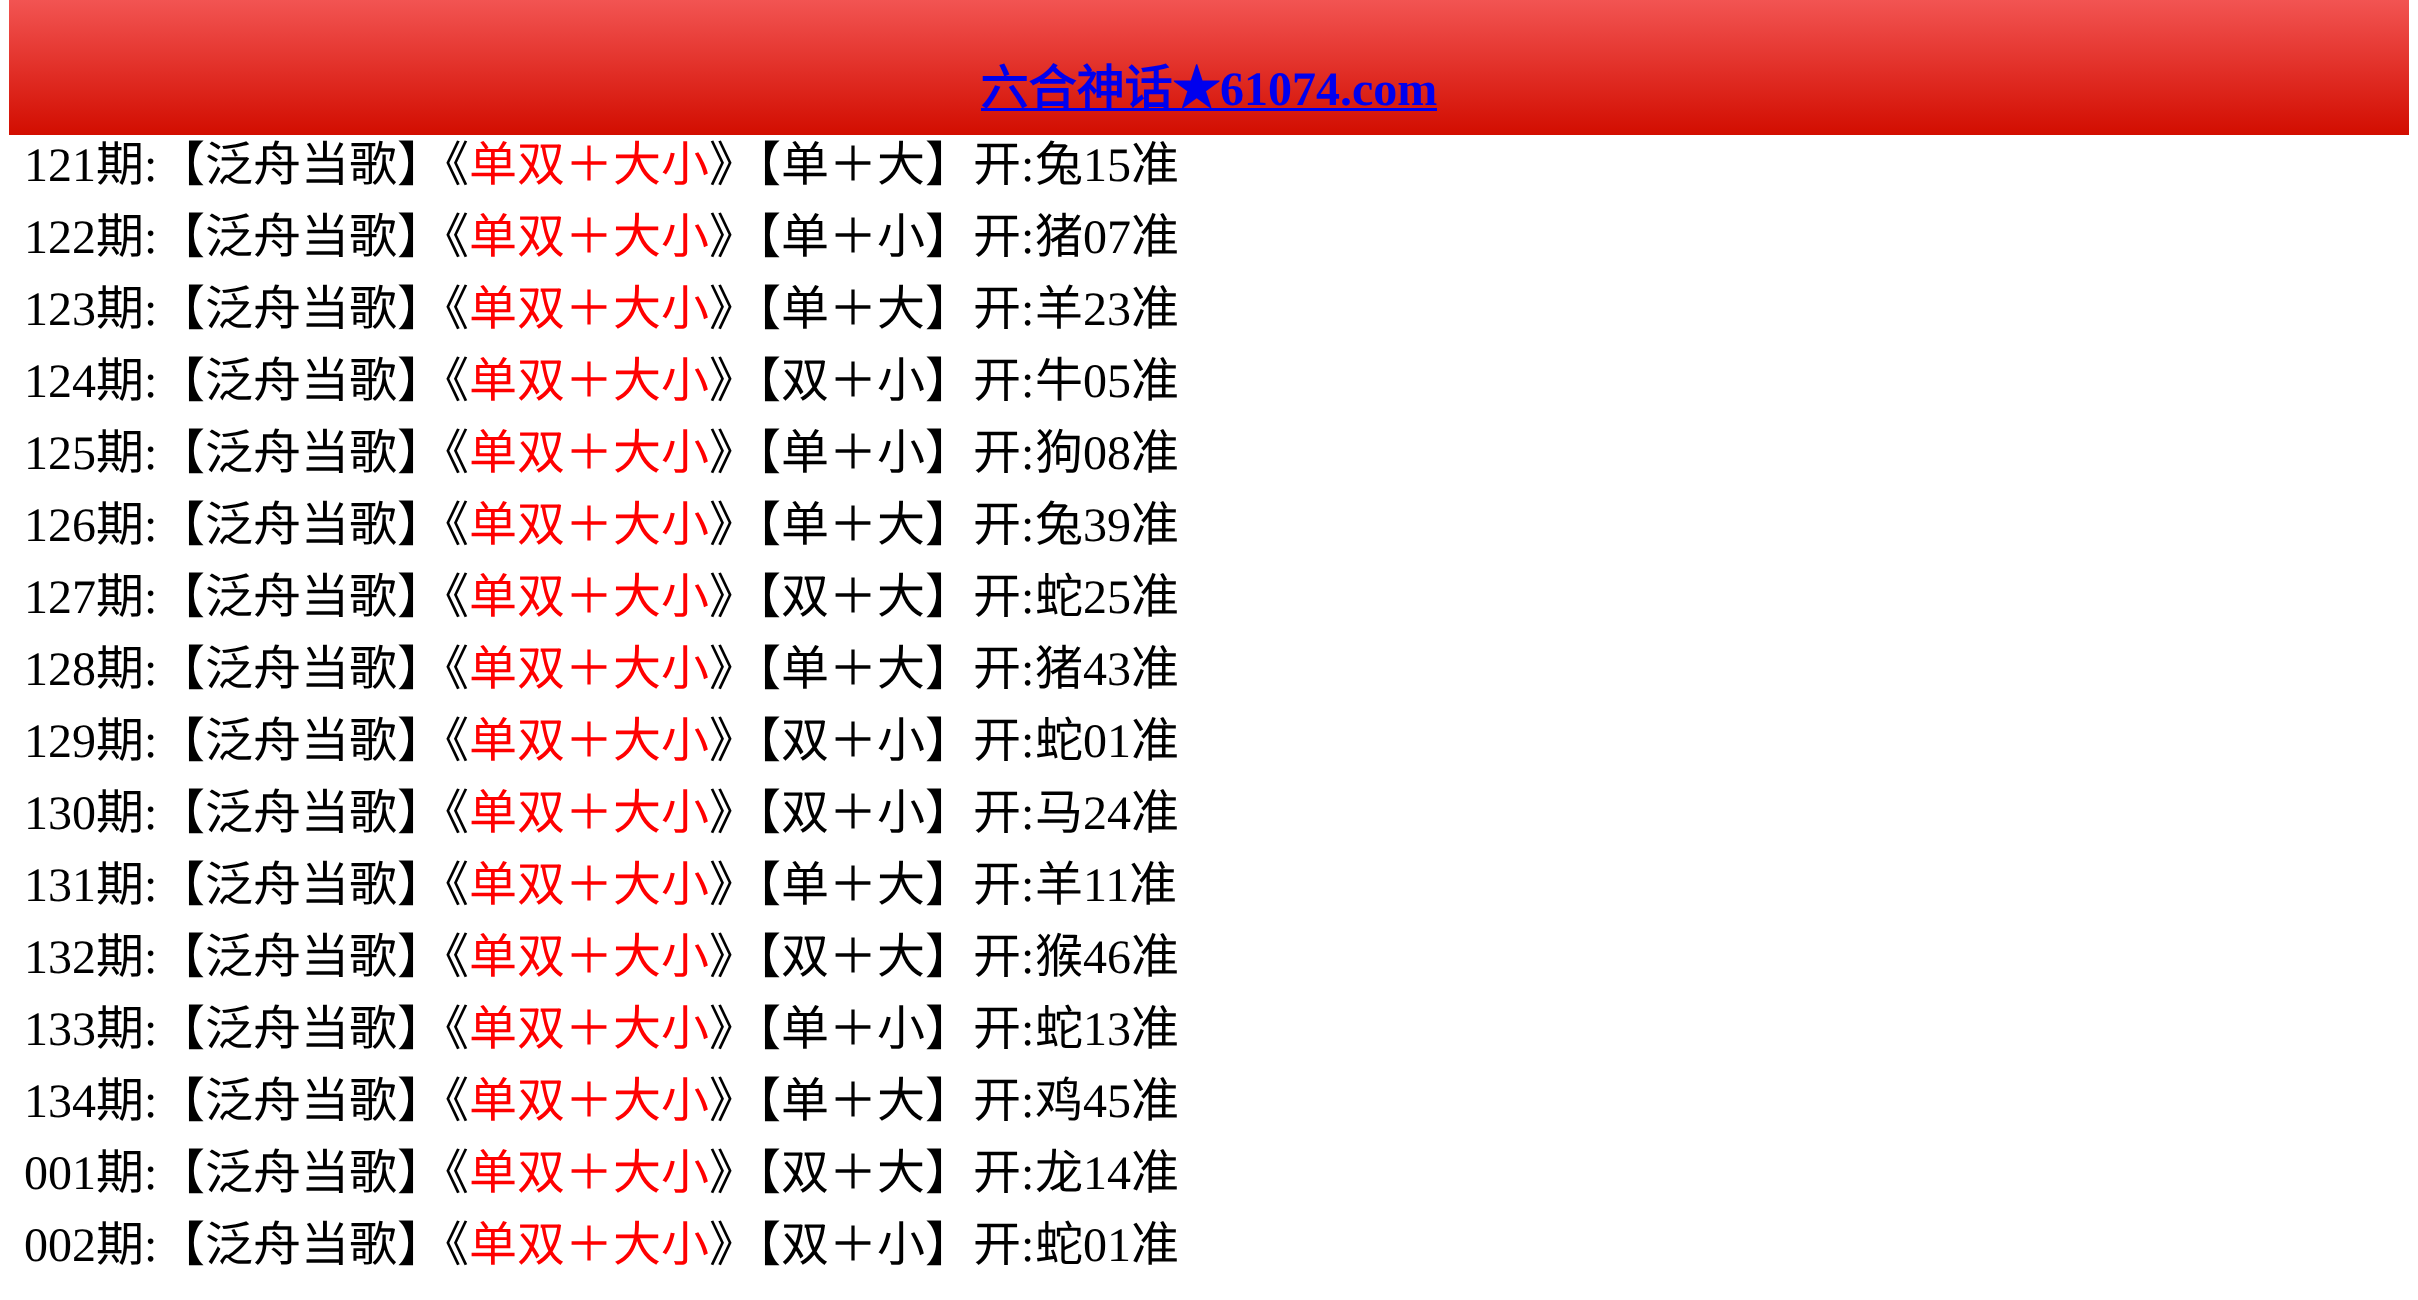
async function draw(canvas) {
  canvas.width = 2418;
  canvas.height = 1300;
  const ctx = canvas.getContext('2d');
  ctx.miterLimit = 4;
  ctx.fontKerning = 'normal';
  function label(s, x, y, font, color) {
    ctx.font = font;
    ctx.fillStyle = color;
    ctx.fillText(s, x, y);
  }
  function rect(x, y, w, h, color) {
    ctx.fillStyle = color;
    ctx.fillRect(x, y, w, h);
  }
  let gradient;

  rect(0, 0, 2418, 1300, '#fff');
  gradient = ctx.createLinearGradient(1209, 135, 1209, 0);
  gradient.addColorStop(0, '#d20d00');
  gradient.addColorStop(1, '#f25452');
  ctx.fillStyle = gradient;
  ctx.fillRect(9, 0, 2400, 135);
  rect(981, 108, 456, 3, '#00e');
  label('六合神话★', 980, 105, 'bold 48px Noto Sans CJK SC', '#00e');
  label('61074.com', 1220, 105, 'bold 48px Liberation Serif', '#00e');
  label('121', 24, 181, '48px Liberation Serif', '#000');
  label('期', 96, 181, '48px Noto Sans CJK SC', '#000');
  label(':', 144, 181, '48px Liberation Serif', '#000');
  label('【泛舟当歌】《', 157, 181, '48px Noto Sans CJK SC', '#000');
  label('单双＋大小', 469, 181, '48px Noto Sans CJK SC', '#f00');
  label('》【单＋大】开', 709, 181, '48px Noto Sans CJK SC', '#000');
  label(':', 1021, 181, '48px Liberation Serif', '#000');
  label('兔', 1035, 181, '48px Noto Sans CJK SC', '#000');
  label('15', 1083, 181, '48px Liberation Serif', '#000');
  label('准', 1131, 181, '48px Noto Sans CJK SC', '#000');
  label('122', 24, 253, '48px Liberation Serif', '#000');
  label('期', 96, 253, '48px Noto Sans CJK SC', '#000');
  label(':', 144, 253, '48px Liberation Serif', '#000');
  label('【泛舟当歌】《', 157, 253, '48px Noto Sans CJK SC', '#000');
  label('单双＋大小', 469, 253, '48px Noto Sans CJK SC', '#f00');
  label('》【单＋小】开', 709, 253, '48px Noto Sans CJK SC', '#000');
  label(':', 1021, 253, '48px Liberation Serif', '#000');
  label('猪', 1035, 253, '48px Noto Sans CJK SC', '#000');
  label('07', 1083, 253, '48px Liberation Serif', '#000');
  label('准', 1131, 253, '48px Noto Sans CJK SC', '#000');
  label('123', 24, 325, '48px Liberation Serif', '#000');
  label('期', 96, 325, '48px Noto Sans CJK SC', '#000');
  label(':', 144, 325, '48px Liberation Serif', '#000');
  label('【泛舟当歌】《', 157, 325, '48px Noto Sans CJK SC', '#000');
  label('单双＋大小', 469, 325, '48px Noto Sans CJK SC', '#f00');
  label('》【单＋大】开', 709, 325, '48px Noto Sans CJK SC', '#000');
  label(':', 1021, 325, '48px Liberation Serif', '#000');
  label('羊', 1035, 325, '48px Noto Sans CJK SC', '#000');
  label('23', 1083, 325, '48px Liberation Serif', '#000');
  label('准', 1131, 325, '48px Noto Sans CJK SC', '#000');
  label('124', 24, 397, '48px Liberation Serif', '#000');
  label('期', 96, 397, '48px Noto Sans CJK SC', '#000');
  label(':', 144, 397, '48px Liberation Serif', '#000');
  label('【泛舟当歌】《', 157, 397, '48px Noto Sans CJK SC', '#000');
  label('单双＋大小', 469, 397, '48px Noto Sans CJK SC', '#f00');
  label('》【双＋小】开', 709, 397, '48px Noto Sans CJK SC', '#000');
  label(':', 1021, 397, '48px Liberation Serif', '#000');
  label('牛', 1035, 397, '48px Noto Sans CJK SC', '#000');
  label('05', 1083, 397, '48px Liberation Serif', '#000');
  label('准', 1131, 397, '48px Noto Sans CJK SC', '#000');
  label('125', 24, 469, '48px Liberation Serif', '#000');
  label('期', 96, 469, '48px Noto Sans CJK SC', '#000');
  label(':', 144, 469, '48px Liberation Serif', '#000');
  label('【泛舟当歌】《', 157, 469, '48px Noto Sans CJK SC', '#000');
  label('单双＋大小', 469, 469, '48px Noto Sans CJK SC', '#f00');
  label('》【单＋小】开', 709, 469, '48px Noto Sans CJK SC', '#000');
  label(':', 1021, 469, '48px Liberation Serif', '#000');
  label('狗', 1035, 469, '48px Noto Sans CJK SC', '#000');
  label('08', 1083, 469, '48px Liberation Serif', '#000');
  label('准', 1131, 469, '48px Noto Sans CJK SC', '#000');
  label('126', 24, 541, '48px Liberation Serif', '#000');
  label('期', 96, 541, '48px Noto Sans CJK SC', '#000');
  label(':', 144, 541, '48px Liberation Serif', '#000');
  label('【泛舟当歌】《', 157, 541, '48px Noto Sans CJK SC', '#000');
  label('单双＋大小', 469, 541, '48px Noto Sans CJK SC', '#f00');
  label('》【单＋大】开', 709, 541, '48px Noto Sans CJK SC', '#000');
  label(':', 1021, 541, '48px Liberation Serif', '#000');
  label('兔', 1035, 541, '48px Noto Sans CJK SC', '#000');
  label('39', 1083, 541, '48px Liberation Serif', '#000');
  label('准', 1131, 541, '48px Noto Sans CJK SC', '#000');
  label('127', 24, 613, '48px Liberation Serif', '#000');
  label('期', 96, 613, '48px Noto Sans CJK SC', '#000');
  label(':', 144, 613, '48px Liberation Serif', '#000');
  label('【泛舟当歌】《', 157, 613, '48px Noto Sans CJK SC', '#000');
  label('单双＋大小', 469, 613, '48px Noto Sans CJK SC', '#f00');
  label('》【双＋大】开', 709, 613, '48px Noto Sans CJK SC', '#000');
  label(':', 1021, 613, '48px Liberation Serif', '#000');
  label('蛇', 1035, 613, '48px Noto Sans CJK SC', '#000');
  label('25', 1083, 613, '48px Liberation Serif', '#000');
  label('准', 1131, 613, '48px Noto Sans CJK SC', '#000');
  label('128', 24, 685, '48px Liberation Serif', '#000');
  label('期', 96, 685, '48px Noto Sans CJK SC', '#000');
  label(':', 144, 685, '48px Liberation Serif', '#000');
  label('【泛舟当歌】《', 157, 685, '48px Noto Sans CJK SC', '#000');
  label('单双＋大小', 469, 685, '48px Noto Sans CJK SC', '#f00');
  label('》【单＋大】开', 709, 685, '48px Noto Sans CJK SC', '#000');
  label(':', 1021, 685, '48px Liberation Serif', '#000');
  label('猪', 1035, 685, '48px Noto Sans CJK SC', '#000');
  label('43', 1083, 685, '48px Liberation Serif', '#000');
  label('准', 1131, 685, '48px Noto Sans CJK SC', '#000');
  label('129', 24, 757, '48px Liberation Serif', '#000');
  label('期', 96, 757, '48px Noto Sans CJK SC', '#000');
  label(':', 144, 757, '48px Liberation Serif', '#000');
  label('【泛舟当歌】《', 157, 757, '48px Noto Sans CJK SC', '#000');
  label('单双＋大小', 469, 757, '48px Noto Sans CJK SC', '#f00');
  label('》【双＋小】开', 709, 757, '48px Noto Sans CJK SC', '#000');
  label(':', 1021, 757, '48px Liberation Serif', '#000');
  label('蛇', 1035, 757, '48px Noto Sans CJK SC', '#000');
  label('01', 1083, 757, '48px Liberation Serif', '#000');
  label('准', 1131, 757, '48px Noto Sans CJK SC', '#000');
  label('130', 24, 829, '48px Liberation Serif', '#000');
  label('期', 96, 829, '48px Noto Sans CJK SC', '#000');
  label(':', 144, 829, '48px Liberation Serif', '#000');
  label('【泛舟当歌】《', 157, 829, '48px Noto Sans CJK SC', '#000');
  label('单双＋大小', 469, 829, '48px Noto Sans CJK SC', '#f00');
  label('》【双＋小】开', 709, 829, '48px Noto Sans CJK SC', '#000');
  label(':', 1021, 829, '48px Liberation Serif', '#000');
  label('马', 1035, 829, '48px Noto Sans CJK SC', '#000');
  label('24', 1083, 829, '48px Liberation Serif', '#000');
  label('准', 1131, 829, '48px Noto Sans CJK SC', '#000');
  label('131', 24, 901, '48px Liberation Serif', '#000');
  label('期', 96, 901, '48px Noto Sans CJK SC', '#000');
  label(':', 144, 901, '48px Liberation Serif', '#000');
  label('【泛舟当歌】《', 157, 901, '48px Noto Sans CJK SC', '#000');
  label('单双＋大小', 469, 901, '48px Noto Sans CJK SC', '#f00');
  label('》【单＋大】开', 709, 901, '48px Noto Sans CJK SC', '#000');
  label(':', 1021, 901, '48px Liberation Serif', '#000');
  label('羊', 1035, 901, '48px Noto Sans CJK SC', '#000');
  label('11', 1083, 901, '48px Liberation Serif', '#000');
  label('准', 1129, 901, '48px Noto Sans CJK SC', '#000');
  label('132', 24, 973, '48px Liberation Serif', '#000');
  label('期', 96, 973, '48px Noto Sans CJK SC', '#000');
  label(':', 144, 973, '48px Liberation Serif', '#000');
  label('【泛舟当歌】《', 157, 973, '48px Noto Sans CJK SC', '#000');
  label('单双＋大小', 469, 973, '48px Noto Sans CJK SC', '#f00');
  label('》【双＋大】开', 709, 973, '48px Noto Sans CJK SC', '#000');
  label(':', 1021, 973, '48px Liberation Serif', '#000');
  label('猴', 1035, 973, '48px Noto Sans CJK SC', '#000');
  label('46', 1083, 973, '48px Liberation Serif', '#000');
  label('准', 1131, 973, '48px Noto Sans CJK SC', '#000');
  label('133', 24, 1045, '48px Liberation Serif', '#000');
  label('期', 96, 1045, '48px Noto Sans CJK SC', '#000');
  label(':', 144, 1045, '48px Liberation Serif', '#000');
  label('【泛舟当歌】《', 157, 1045, '48px Noto Sans CJK SC', '#000');
  label('单双＋大小', 469, 1045, '48px Noto Sans CJK SC', '#f00');
  label('》【单＋小】开', 709, 1045, '48px Noto Sans CJK SC', '#000');
  label(':', 1021, 1045, '48px Liberation Serif', '#000');
  label('蛇', 1035, 1045, '48px Noto Sans CJK SC', '#000');
  label('13', 1083, 1045, '48px Liberation Serif', '#000');
  label('准', 1131, 1045, '48px Noto Sans CJK SC', '#000');
  label('134', 24, 1117, '48px Liberation Serif', '#000');
  label('期', 96, 1117, '48px Noto Sans CJK SC', '#000');
  label(':', 144, 1117, '48px Liberation Serif', '#000');
  label('【泛舟当歌】《', 157, 1117, '48px Noto Sans CJK SC', '#000');
  label('单双＋大小', 469, 1117, '48px Noto Sans CJK SC', '#f00');
  label('》【单＋大】开', 709, 1117, '48px Noto Sans CJK SC', '#000');
  label(':', 1021, 1117, '48px Liberation Serif', '#000');
  label('鸡', 1035, 1117, '48px Noto Sans CJK SC', '#000');
  label('45', 1083, 1117, '48px Liberation Serif', '#000');
  label('准', 1131, 1117, '48px Noto Sans CJK SC', '#000');
  label('001', 24, 1189, '48px Liberation Serif', '#000');
  label('期', 96, 1189, '48px Noto Sans CJK SC', '#000');
  label(':', 144, 1189, '48px Liberation Serif', '#000');
  label('【泛舟当歌】《', 157, 1189, '48px Noto Sans CJK SC', '#000');
  label('单双＋大小', 469, 1189, '48px Noto Sans CJK SC', '#f00');
  label('》【双＋大】开', 709, 1189, '48px Noto Sans CJK SC', '#000');
  label(':', 1021, 1189, '48px Liberation Serif', '#000');
  label('龙', 1035, 1189, '48px Noto Sans CJK SC', '#000');
  label('14', 1083, 1189, '48px Liberation Serif', '#000');
  label('准', 1131, 1189, '48px Noto Sans CJK SC', '#000');
  label('002', 24, 1261, '48px Liberation Serif', '#000');
  label('期', 96, 1261, '48px Noto Sans CJK SC', '#000');
  label(':', 144, 1261, '48px Liberation Serif', '#000');
  label('【泛舟当歌】《', 157, 1261, '48px Noto Sans CJK SC', '#000');
  label('单双＋大小', 469, 1261, '48px Noto Sans CJK SC', '#f00');
  label('》【双＋小】开', 709, 1261, '48px Noto Sans CJK SC', '#000');
  label(':', 1021, 1261, '48px Liberation Serif', '#000');
  label('蛇', 1035, 1261, '48px Noto Sans CJK SC', '#000');
  label('01', 1083, 1261, '48px Liberation Serif', '#000');
  label('准', 1131, 1261, '48px Noto Sans CJK SC', '#000');
}

draw(document.querySelector('canvas'));
